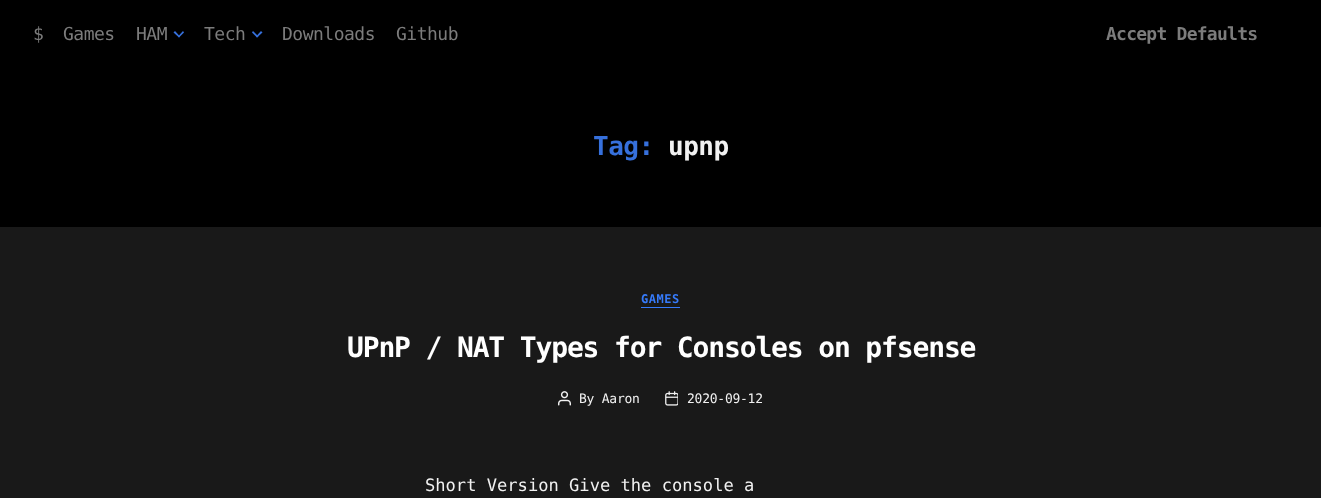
async function draw(canvas) {
  canvas.width = 1321;
  canvas.height = 498;
  const ctx = canvas.getContext('2d');
  ctx.miterLimit = 4;
  ctx.fontKerning = 'normal';
  function label(s, x, y, font, color) {
    ctx.font = font;
    ctx.fillStyle = color;
    ctx.fillText(s, x, y);
  }
  function rect(x, y, w, h, color) {
    ctx.fillStyle = color;
    ctx.fillRect(x, y, w, h);
  }
  async function image(src, x, y, w, h) {
    const img = new Image();
    img.src = src;
    await img.decode();
    ctx.drawImage(img, x, y, w, h);
  }
  let path;

  rect(0, 0, 1321, 498, '#191919');
  rect(0, 0, 1321, 227, '#000');
  ctx.letterSpacing = '-0.5px';
  label('$', 33, 40, '18px DejaVu Sans Mono', '#7c7c7c');
  label('Games', 63, 40, '18px DejaVu Sans Mono', '#7c7c7c');
  label('HAM', 136, 40, '18px DejaVu Sans Mono', '#7c7c7c');
  ctx.fillStyle = '#3670dc';
  path = new Path2D('M173.5 32.5L175 31L180 36.5L179 37.5Z');
  ctx.fill(path);
  path = new Path2D('M178 36.5L183 31L184 32.5L179 37.5Z');
  ctx.fill(path);
  label('Tech', 204, 40, '18px DejaVu Sans Mono', '#7c7c7c');
  ctx.fillStyle = '#3670dc';
  path = new Path2D('M252 32.5L253 31L258.5 36.5L257 37.5Z');
  ctx.fill(path);
  path = new Path2D('M256 36.5L261 31L262.5 32.5L257 37.5Z');
  ctx.fill(path);
  label('Downloads', 282, 40, '18px DejaVu Sans Mono', '#7c7c7c');
  label('Github', 396, 40, '18px DejaVu Sans Mono', '#7c7c7c');
  ctx.letterSpacing = '-0.75px';
  label('Accept Defaults', 1106, 40, 'bold 18px DejaVu Sans Mono', '#7c7c7c');
  ctx.letterSpacing = '-0.5px';
  label('Tag:', 593, 155, 'bold 26px DejaVu Sans Mono', '#3670dc');
  label('upnp', 668, 155, 'bold 26px DejaVu Sans Mono', '#f1f1f1');
  rect(641, 307, 39, 1, '#367bfb');
  ctx.letterSpacing = '0.5px';
  label('GAMES', 641, 303, 'bold 12px DejaVu Sans Mono', '#367bfb');
  ctx.letterSpacing = '-1.15px';
  label('UPnP / NAT Types for Consoles on pfsense', 347, 357, 'bold 28px DejaVu Sans Mono', '#fff');
  await image('assets/img1.png', 558, 391, 13, 15);
  ctx.letterSpacing = '-0.25px';
  label('By Aaron', 579, 403, '13px DejaVu Sans Mono', '#f1f1f1');
  await image('assets/img2.png', 665, 391, 13, 15);
  label('2020-09-12', 687, 403, '13px DejaVu Sans Mono', '#f1f1f1');
  ctx.letterSpacing = '0px';
  label('Short Version Give the console a', 425, 491, '17.1px DejaVu Sans Mono', '#f1f1f1');
}

draw(document.querySelector('canvas'));
